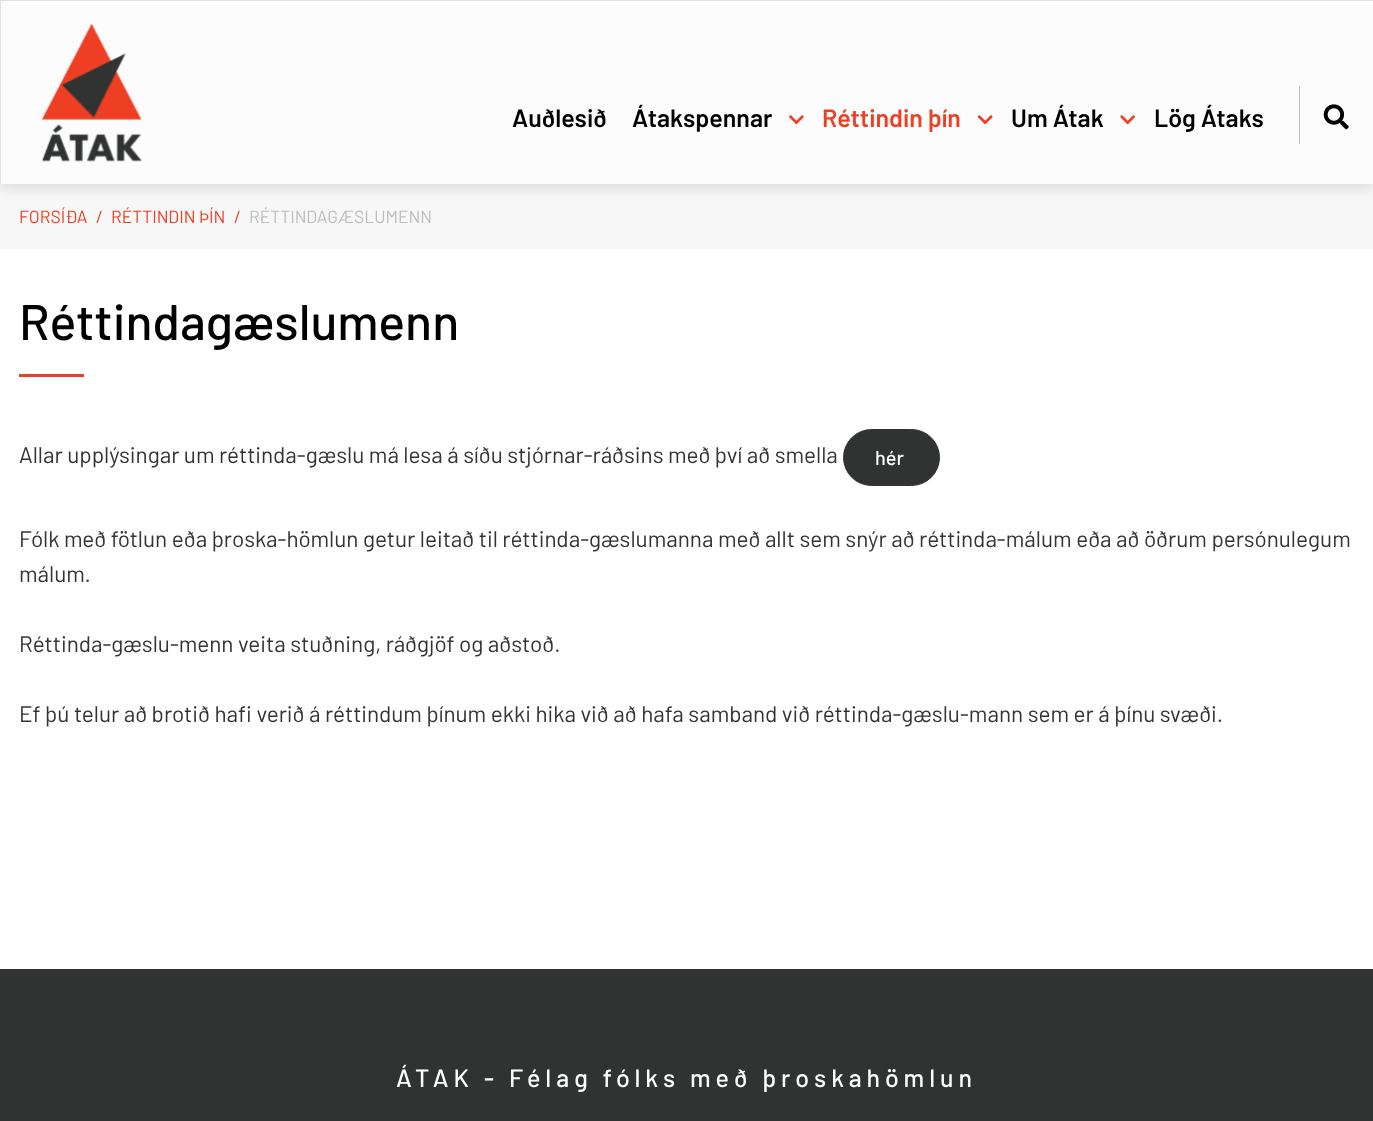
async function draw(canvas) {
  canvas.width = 1373;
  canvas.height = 1121;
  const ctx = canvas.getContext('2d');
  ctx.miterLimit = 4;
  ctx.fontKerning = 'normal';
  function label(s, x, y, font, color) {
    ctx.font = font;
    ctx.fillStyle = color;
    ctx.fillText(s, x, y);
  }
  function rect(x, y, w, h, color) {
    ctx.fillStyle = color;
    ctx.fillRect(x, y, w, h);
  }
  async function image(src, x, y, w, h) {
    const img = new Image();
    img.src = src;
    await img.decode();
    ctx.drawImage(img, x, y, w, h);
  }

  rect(0, 0, 1373, 1121, '#fff');
  rect(0, 184, 1373, 65, '#f7f7f7');
  ctx.fillStyle = '#0000001a';
  ctx.filter = 'blur(6px)';
  ctx.beginPath();
  ctx.rect(0, 5, 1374, 184);
  ctx.fill();
  ctx.filter = 'none';
  rect(1, 1, 1372, 183, '#fcfcfc');
  rect(0, 0, 1373, 1, '#e0e0e0');
  rect(0, 0, 1, 184, '#e0e0e0');
  await image('assets/img1.png', 41, 23, 101, 139);
  label('Auðlesið', 512, 127, '600 25px Barlow', '#000');
  label('Átakspennar', 632, 127, '600 25px Barlow', '#000');
  await image('assets/img2.png', 789, 115, 15, 10);
  label('Réttindin þín', 822, 127, '600 25px Barlow', '#ee3e23');
  await image('assets/img3.png', 977, 115, 16, 10);
  label('Um Átak', 1011, 127, '600 25px Barlow', '#000');
  await image('assets/img4.png', 1120, 115, 16, 10);
  label('Lög Átaks', 1154, 127, '600 25px Barlow', '#000');
  rect(1299, 86, 1, 58, '#bdbdbd');
  await image('assets/img5.png', 1323, 104, 26, 26);
  label('FORSÍÐA', 19, 223, '17.5px Barlow', '#ee3e23');
  label('/', 96, 223, '17.5px Barlow', '#ee3e23');
  label('RÉTTINDIN ÞÍN', 111, 223, '17.5px Barlow', '#ee3e23');
  label('/', 234, 223, '17.5px Barlow', '#ee3e23');
  label('RÉTTINDAGÆSLUMENN', 249, 223, '17.5px Barlow', '#bdbdbd');
  label('Réttindagæslumenn', 19, 340, '500 50px Barlow', '#000');
  rect(19, 374, 65, 3, '#ee3e23');
  label('Allar upplýsingar um réttinda-gæslu má lesa á síðu stjórnar-ráðsins með því að smella', 19, 463, '22.5px Barlow', '#333');
  ctx.fillStyle = '#313332';
  ctx.beginPath();
  ctx.roundRect(843.5, 429.5, 96, 56, 28);
  ctx.fill();
  ctx.strokeStyle = '#313332';
  ctx.stroke();
  label('hér', 875, 465, '500 20px Barlow', '#fff');
  label('Fólk með fötlun eða þroska-hömlun getur leitað til réttinda-gæslumanna með allt sem snýr að réttinda-málum eða að öðrum persónulegum', 19, 547, '22.5px Barlow', '#333');
  label('málum.', 19, 582, '22.5px Barlow', '#333');
  label('Réttinda-gæslu-menn veita stuðning, ráðgjöf og aðstoð.', 19, 652, '22.5px Barlow', '#333');
  label('Ef þú telur að brotið hafi verið á réttindum þínum ekki hika við að hafa samband við réttinda-gæslu-mann sem er á þínu svæði.', 19, 722, '22.5px Barlow', '#333');
  rect(0, 969, 1373, 152, '#313332');
  ctx.letterSpacing = '5px';
  label('ÁTAK - Félag fólks með þroskahömlun', 396, 1087, '500 25px Barlow', '#fff');
}

draw(document.querySelector('canvas'));
